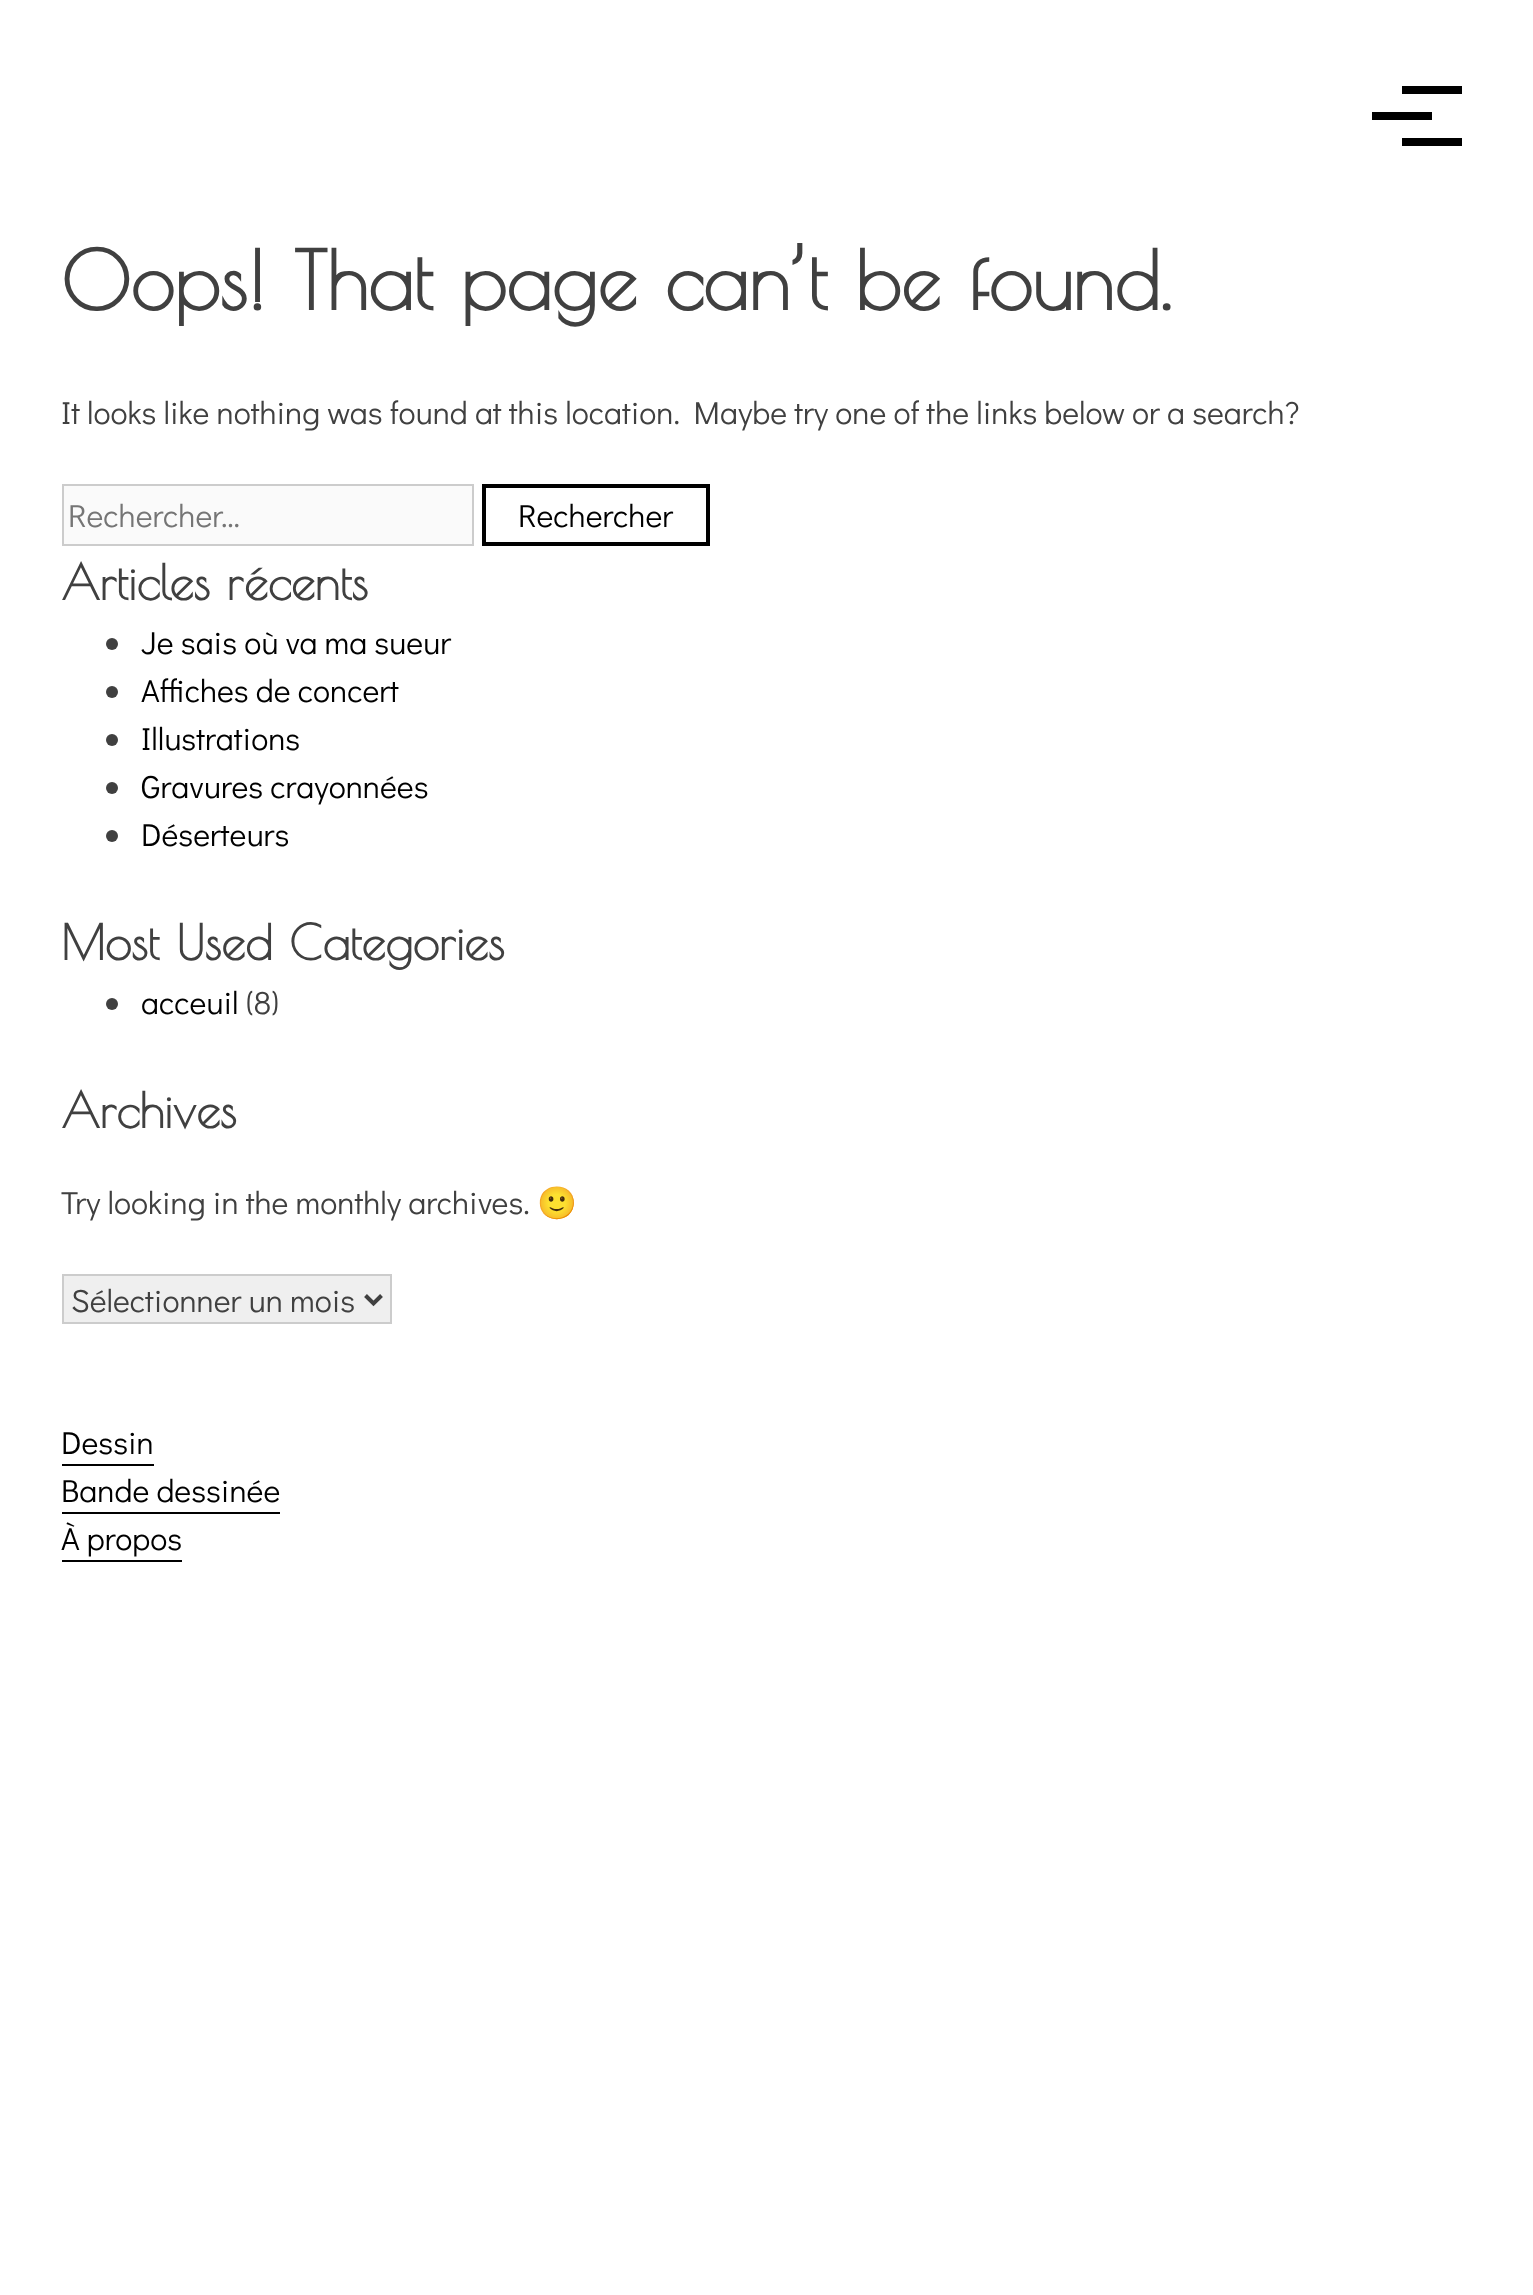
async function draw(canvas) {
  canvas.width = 1533;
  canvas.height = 2295;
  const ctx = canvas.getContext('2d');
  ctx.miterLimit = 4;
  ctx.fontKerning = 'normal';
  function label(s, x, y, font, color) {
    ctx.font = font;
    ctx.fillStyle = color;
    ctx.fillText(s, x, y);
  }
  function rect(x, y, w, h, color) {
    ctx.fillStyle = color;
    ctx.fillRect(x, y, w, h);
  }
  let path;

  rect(0, 0, 1533, 2295, '#fff');
  rect(1372, 112, 60, 8, '#000');
  rect(1402, 86, 60, 8, '#000');
  rect(1402, 138, 60, 8, '#000');
  label('Oops! That page can’t be found.', 61, 310, 'bold 80px Poiret One', '#404040');
  label('It looks like nothing was found at this location. Maybe try one of the links below or a search?', 61, 424, '32px Didact Gothic', '#404040');
  ctx.fillStyle = '#fafafa';
  ctx.beginPath();
  ctx.rect(63, 485, 410, 60);
  ctx.fill();
  ctx.strokeStyle = '#ccc';
  ctx.lineWidth = 2;
  ctx.stroke();
  label('Rechercher…', 68, 527, '32px Didact Gothic', '#757575');
  ctx.strokeStyle = '#000';
  ctx.lineWidth = 4;
  ctx.strokeRect(484, 486, 224, 58);
  label('Rechercher', 518, 527, '32px Didact Gothic', '#000');
  label('Articles récents', 61, 600, 'bold 48px Poiret One', '#404040');
  ctx.beginPath();
  ctx.arc(112, 644, 6, 0, 2 * Math.PI);
  ctx.fill();
  label('Je sais où va ma sueur', 141, 654, '32px Didact Gothic', '#000');
  ctx.fillStyle = '#404040';
  ctx.beginPath();
  ctx.arc(112, 692, 6, 0, 2 * Math.PI);
  ctx.fill();
  label('Affiches de concert', 141, 702, '32px Didact Gothic', '#000');
  ctx.fillStyle = '#404040';
  ctx.beginPath();
  ctx.arc(112, 740, 6, 0, 2 * Math.PI);
  ctx.fill();
  label('Illustrations', 141, 750, '32px Didact Gothic', '#000');
  ctx.fillStyle = '#404040';
  ctx.beginPath();
  ctx.arc(112, 788, 6, 0, 2 * Math.PI);
  ctx.fill();
  label('Gravures crayonnées', 141, 798, '32px Didact Gothic', '#000');
  ctx.fillStyle = '#404040';
  ctx.beginPath();
  ctx.arc(112, 836, 6, 0, 2 * Math.PI);
  ctx.fill();
  label('Déserteurs', 141, 846, '32px Didact Gothic', '#000');
  label('Most Used Categories', 61, 960, 'bold 48px Poiret One', '#404040');
  ctx.beginPath();
  ctx.arc(112, 1004, 6, 0, 2 * Math.PI);
  ctx.fill();
  label('acceuil', 141, 1014, '32px Didact Gothic', '#000');
  label('(8)', 246, 1014, '32px Didact Gothic', '#404040');
  label('Archives', 61, 1128, 'bold 48px Poiret One', '#404040');
  label('Try looking in the monthly archives.', 61, 1214, '32px Didact Gothic', '#404040');
  label('🙂', 537, 1214, '32px Noto Color Emoji', '#404040');
  ctx.fillStyle = '#efefef';
  ctx.beginPath();
  ctx.rect(63, 1275, 328, 48);
  ctx.fill();
  ctx.strokeStyle = '#ccc';
  ctx.lineWidth = 2;
  ctx.stroke();
  path = new Path2D('M365.5 1295.5L373.5 1303.5L381.5 1295.5');
  ctx.strokeStyle = '#404040';
  ctx.lineWidth = 4;
  ctx.stroke(path);
  label('Sélectionner un mois', 71, 1312, '32px Didact Gothic', '#404040');
  label('Dessin', 61, 1454, '32px Didact Gothic', '#000');
  rect(62, 1464, 92, 2, '#000');
  label('Bande dessinée', 61, 1502, '32px Didact Gothic', '#000');
  rect(62, 1512, 218, 2, '#000');
  label('À propos', 61, 1550, '32px Didact Gothic', '#000');
  rect(62, 1560, 120, 2, '#000');
}

draw(document.querySelector('canvas'));
